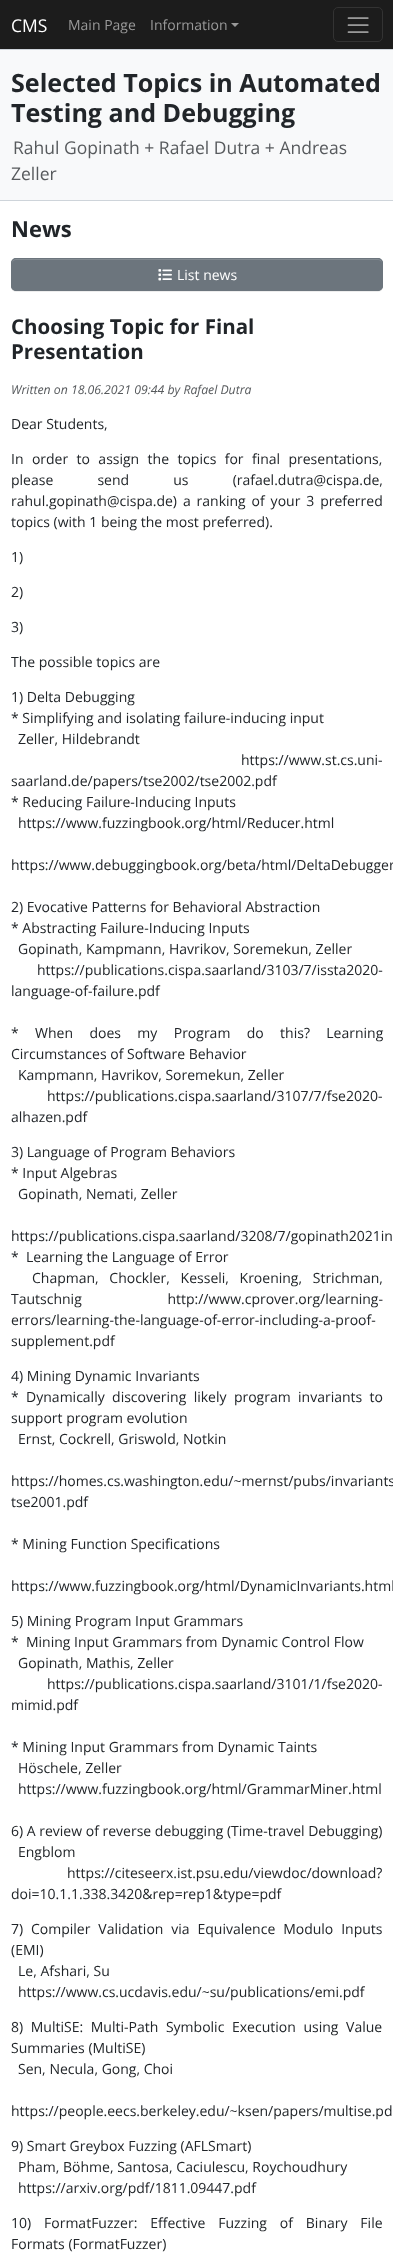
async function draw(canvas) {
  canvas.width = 393;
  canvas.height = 2261;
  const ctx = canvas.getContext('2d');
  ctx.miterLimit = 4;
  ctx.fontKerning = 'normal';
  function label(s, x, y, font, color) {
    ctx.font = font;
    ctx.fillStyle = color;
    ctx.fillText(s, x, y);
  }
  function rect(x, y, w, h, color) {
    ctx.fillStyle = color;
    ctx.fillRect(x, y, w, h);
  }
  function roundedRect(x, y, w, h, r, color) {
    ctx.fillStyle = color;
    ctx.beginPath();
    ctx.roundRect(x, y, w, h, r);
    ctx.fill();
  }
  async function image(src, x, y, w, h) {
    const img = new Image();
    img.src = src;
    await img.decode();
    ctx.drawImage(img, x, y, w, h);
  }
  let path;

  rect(0, 0, 393, 2261, '#f8f9fa');
  rect(0, 0, 393, 49, '#1c1c1c');
  rect(0, 49, 393, 1, '#ced4da');
  label('CMS', 11, 32, '17.5px Open Sans', '#fff');
  label('Main Page', 68, 30, '14px Open Sans', '#999');
  label('Information', 150, 30, '14px Open Sans', '#999');
  path = new Path2D('M231 23H239L235 27Z');
  ctx.fill(path);
  ctx.beginPath();
  ctx.roundRect(333.5, 7.5, 49, 34, 4.5);
  ctx.strokeStyle = '#333';
  ctx.stroke();
  await image('assets/img1.png', 347, 17, 22, 16);
  rect(0, 200, 393, 1, '#ced4da');
  label('Selected Topics in Automated', 11, 92, 'bold 25.1px Open Sans', '#212529');
  label('Testing and Debugging', 11, 122, 'bold 25.1px Open Sans', '#212529');
  label('Rahul Gopinath + Rafael Dutra + Andreas', 13, 154, '17.5px Open Sans', '#575a5d');
  label('Zeller', 11, 180, '17.5px Open Sans', '#575a5d');
  rect(0, 201, 393, 2060, '#fff');
  label('News', 11, 237, 'bold 22px Open Sans', '#212529');
  ctx.fillStyle = '#00000012';
  ctx.filter = 'blur(0.5px)';
  ctx.beginPath();
  ctx.roundRect(11, 259, 372, 33, 5);
  ctx.fill();
  ctx.filter = 'none';
  roundedRect(11, 258, 372, 33, 5, '#6c757d');
  ctx.fillStyle = '#828a91';
  path = new Path2D('M16 260H378C380 260 382 262 382 264C382 261 381 259 378 259H16C13 259 12 261 12 264C12 262 14 260 16 260Z');
  ctx.fill(path);
  ctx.beginPath();
  ctx.roundRect(11.5, 258.5, 371, 32, 4.5);
  ctx.strokeStyle = '#6c757d';
  ctx.stroke();
  await image('assets/img2.png', 158, 269, 14, 12);
  label('List news', 177, 280, '14px Open Sans', '#fff');
  label('Choosing Topic for Final', 11, 334, 'bold 20.5px Open Sans', '#212529');
  label('Presentation', 11, 359, 'bold 20.5px Open Sans', '#212529');
  label('Written on 18.06.2021 09:44 by Rafael Dutra', 11, 394, 'italic 12.25px Open Sans', '#575a5d');
  label('Dear Students,', 11, 429, '14px Open Sans', '#212529');
  ctx.wordSpacing = '4.75px';
  label('In order to assign the topics for final presentations,', 11, 464, '14px Open Sans', '#212529');
  ctx.wordSpacing = '40.5px';
  label('please send us (rafael.dutra@cispa.de,', 11, 485, '14px Open Sans', '#212529');
  ctx.wordSpacing = '2.25px';
  label('rahul.gopinath@cispa.de) a ranking of your 3 preferred', 11, 506, '14px Open Sans', '#212529');
  ctx.wordSpacing = '0px';
  label('topics (with 1 being the most preferred).', 11, 527, '14px Open Sans', '#212529');
  label('1)', 11, 562, '14px Open Sans', '#212529');
  label('2)', 11, 597, '14px Open Sans', '#212529');
  label('3)', 11, 632, '14px Open Sans', '#212529');
  label('The possible topics are', 11, 667, '14px Open Sans', '#212529');
  label('1) Delta Debugging', 11, 702, '14px Open Sans', '#212529');
  label('* Simplifying and isolating failure-inducing input', 11, 723, '14px Open Sans', '#212529');
  label('Zeller, Hildebrandt', 18, 744, '14px Open Sans', '#212529');
  label('https://www.st.cs.uni-', 241, 765, '14px Open Sans', '#212529');
  label('saarland.de/papers/tse2002/tse2002.pdf', 11, 786, '14px Open Sans', '#212529');
  label('* Reducing Failure-Inducing Inputs', 11, 807, '14px Open Sans', '#212529');
  label('https://www.fuzzingbook.org/html/Reducer.html', 18, 828, '14px Open Sans', '#212529');
  label('https://www.debuggingbook.org/beta/html/DeltaDebugger', 11, 870, '14px Open Sans', '#212529');
  label('2) Evocative Patterns for Behavioral Abstraction', 11, 912, '14px Open Sans', '#212529');
  label('* Abstracting Failure-Inducing Inputs', 11, 933, '14px Open Sans', '#212529');
  label('Gopinath, Kampmann, Havrikov, Soremekun, Zeller', 18, 954, '14px Open Sans', '#212529');
  label('https://publications.cispa.saarland/3103/7/issta2020-', 37, 975, '14px Open Sans', '#212529');
  label('language-of-failure.pdf', 11, 996, '14px Open Sans', '#212529');
  ctx.wordSpacing = '12.75px';
  label('* When does my Program do this? Learning', 11, 1038, '14px Open Sans', '#212529');
  ctx.wordSpacing = '0px';
  label('Circumstances of Software Behavior', 11, 1059, '14px Open Sans', '#212529');
  label('Kampmann, Havrikov, Soremekun, Zeller', 18, 1080, '14px Open Sans', '#212529');
  label('https://publications.cispa.saarland/3107/7/fse2020-', 47, 1101, '14px Open Sans', '#212529');
  label('alhazen.pdf', 11, 1122, '14px Open Sans', '#212529');
  label('3) Language of Program Behaviors', 11, 1157, '14px Open Sans', '#212529');
  label('* Input Algebras', 11, 1178, '14px Open Sans', '#212529');
  label('Gopinath, Nemati, Zeller', 18, 1199, '14px Open Sans', '#212529');
  label('https://publications.cispa.saarland/3208/7/gopinath2021in', 11, 1241, '14px Open Sans', '#212529');
  label('*  Learning the Language of Error', 11, 1262, '14px Open Sans', '#212529');
  ctx.wordSpacing = '7px';
  label('Chapman, Chockler, Kesseli, Kroening, Strichman,', 32, 1283, '14px Open Sans', '#212529');
  ctx.wordSpacing = '82px';
  label('Tautschnig http://www.cprover.org/learning-', 11, 1304, '14px Open Sans', '#212529');
  ctx.wordSpacing = '0px';
  label('errors/learning-the-language-of-error-including-a-proof-', 11, 1325, '14px Open Sans', '#212529');
  label('supplement.pdf', 11, 1346, '14px Open Sans', '#212529');
  label('4) Mining Dynamic Invariants', 11, 1381, '14px Open Sans', '#212529');
  ctx.wordSpacing = '3.75px';
  label('* Dynamically discovering likely program invariants to', 11, 1402, '14px Open Sans', '#212529');
  ctx.wordSpacing = '0px';
  label('support program evolution', 11, 1423, '14px Open Sans', '#212529');
  label('Ernst, Cockrell, Griswold, Notkin', 18, 1444, '14px Open Sans', '#212529');
  label('https://homes.cs.washington.edu/~mernst/pubs/invariants', 11, 1486, '14px Open Sans', '#212529');
  label('tse2001.pdf', 11, 1507, '14px Open Sans', '#212529');
  label('* Mining Function Specifications', 11, 1549, '14px Open Sans', '#212529');
  label('https://www.fuzzingbook.org/html/DynamicInvariants.html', 11, 1591, '14px Open Sans', '#212529');
  label('5) Mining Program Input Grammars', 11, 1626, '14px Open Sans', '#212529');
  label('*  Mining Input Grammars from Dynamic Control Flow', 11, 1647, '14px Open Sans', '#212529');
  label('Gopinath, Mathis, Zeller', 18, 1668, '14px Open Sans', '#212529');
  label('https://publications.cispa.saarland/3101/1/fse2020-', 47, 1689, '14px Open Sans', '#212529');
  label('mimid.pdf', 11, 1710, '14px Open Sans', '#212529');
  label('* Mining Input Grammars from Dynamic Taints', 11, 1752, '14px Open Sans', '#212529');
  label('Höschele, Zeller', 18, 1773, '14px Open Sans', '#212529');
  label('https://www.fuzzingbook.org/html/GrammarMiner.html', 18, 1794, '14px Open Sans', '#212529');
  label('6) A review of reverse debugging (Time-travel Debugging)', 11, 1836, '14px Open Sans', '#212529');
  label('Engblom', 18, 1857, '14px Open Sans', '#212529');
  label('https://citeseerx.ist.psu.edu/viewdoc/download?', 67, 1878, '14px Open Sans', '#212529');
  label('doi=10.1.1.338.3420&rep=rep1&type=pdf', 11, 1899, '14px Open Sans', '#212529');
  ctx.wordSpacing = '4.25px';
  label('7) Compiler Validation via Equivalence Modulo Inputs', 11, 1934, '14px Open Sans', '#212529');
  ctx.wordSpacing = '0px';
  label('(EMI)', 11, 1955, '14px Open Sans', '#212529');
  label('Le, Afshari, Su', 18, 1976, '14px Open Sans', '#212529');
  label('https://www.cs.ucdavis.edu/~su/publications/emi.pdf', 18, 1997, '14px Open Sans', '#212529');
  ctx.wordSpacing = '4px';
  label('8) MultiSE: Multi-Path Symbolic Execution using Value', 11, 2032, '14px Open Sans', '#212529');
  ctx.wordSpacing = '0px';
  label('Summaries (MultiSE)', 11, 2053, '14px Open Sans', '#212529');
  label('Sen, Necula, Gong, Choi', 18, 2074, '14px Open Sans', '#212529');
  label('https://people.eecs.berkeley.edu/~ksen/papers/multise.pd', 11, 2116, '14px Open Sans', '#212529');
  label('9) Smart Greybox Fuzzing (AFLSmart)', 11, 2151, '14px Open Sans', '#212529');
  label('Pham, Böhme, Santosa, Caciulescu, Roychoudhury', 18, 2172, '14px Open Sans', '#212529');
  label('https://arxiv.org/pdf/1811.09447.pdf', 18, 2193, '14px Open Sans', '#212529');
  ctx.wordSpacing = '9.25px';
  label('10) FormatFuzzer: Effective Fuzzing of Binary File', 11, 2228, '14px Open Sans', '#212529');
  ctx.wordSpacing = '0px';
  label('Formats (FormatFuzzer)', 11, 2249, '14px Open Sans', '#212529');
}

draw(document.querySelector('canvas'));
